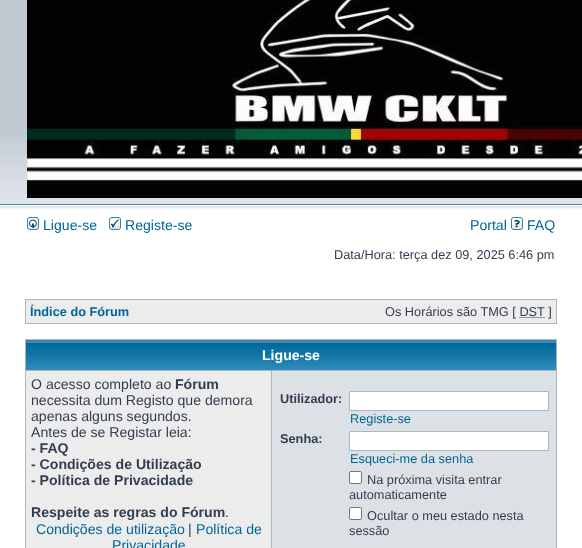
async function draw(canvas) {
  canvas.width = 582;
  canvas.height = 548;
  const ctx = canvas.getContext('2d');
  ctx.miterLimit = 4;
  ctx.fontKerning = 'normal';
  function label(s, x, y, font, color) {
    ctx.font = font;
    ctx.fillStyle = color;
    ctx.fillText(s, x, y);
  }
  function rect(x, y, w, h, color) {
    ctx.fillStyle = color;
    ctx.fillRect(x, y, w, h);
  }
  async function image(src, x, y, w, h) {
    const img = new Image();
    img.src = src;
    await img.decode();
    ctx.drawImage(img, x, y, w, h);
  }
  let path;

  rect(0, 0, 582, 548, '#fff');
  rect(0, 0, 27, 137, '#c1cad2');
  await image('assets/img1.png', 0, 137, 582, 78);
  await image('assets/img2.png', 27, 0, 555, 198);
  await image('assets/img3.png', 27, 217, 12, 13);
  label('Ligue-se', 43, 230, '14.1px Liberation Sans', '#006597');
  await image('assets/img4.png', 109, 217, 12, 13);
  label('Registe-se', 125, 230, '14.1px Liberation Sans', '#006597');
  label('Portal', 470, 230, '14.1px Liberation Sans', '#006597');
  await image('assets/img5.png', 511, 217, 12, 13);
  label('FAQ', 527, 230, '14.1px Liberation Sans', '#006597');
  label('Data/Hora: terça dez 09, 2025 6:46 pm', 334, 259, '12.75px Liberation Sans', '#323d4f');
  rect(25, 299, 532, 25, '#a9b8c2');
  rect(26, 300, 530, 23, '#ececec');
  label('Índice do Fórum', 30, 316, 'bold 12.75px Liberation Sans', '#006597');
  label('Os Horários são TMG [ DST ]', 385, 316, '12.75px Liberation Sans', '#323d4f');
  path = new Path2D('M519.5 317.5H545');
  ctx.strokeStyle = '#323d4f';
  ctx.setLineDash([1, 1]);
  ctx.stroke(path);
  rect(25, 339, 532, 209, '#a9b8c2');
  await image('assets/img6.png', 26, 340, 530, 30);
  label('Ligue-se', 262, 360, 'bold 14.1px Liberation Sans', '#fff');
  rect(26, 371, 245, 177, '#ececec');
  label('O acesso completo ao', 31, 389, '14.1px Liberation Sans', '#323d4f');
  label('Fórum', 175, 389, 'bold 14.1px Liberation Sans', '#323d4f');
  label('necessita dum Registo que demora', 31, 405, '14.1px Liberation Sans', '#323d4f');
  label('apenas alguns segundos.', 31, 421, '14.1px Liberation Sans', '#323d4f');
  label('Antes de se Registar leia:', 31, 437, '14.1px Liberation Sans', '#323d4f');
  label('- FAQ', 31, 453, 'bold 14.1px Liberation Sans', '#323d4f');
  label('- Condições de Utilização', 31, 469, 'bold 14.1px Liberation Sans', '#323d4f');
  label('- Política de Privacidade', 31, 485, 'bold 14.1px Liberation Sans', '#323d4f');
  label('Respeite as regras do Fórum', 31, 517, 'bold 14.1px Liberation Sans', '#323d4f');
  label('.', 225, 517, '14.1px Liberation Sans', '#323d4f');
  label('Condições de utilização', 36, 534, '14.1px Liberation Sans', '#006597');
  label('|', 188, 534, '14.1px Liberation Sans', '#323d4f');
  label('Política de', 196, 534, '14.1px Liberation Sans', '#006597');
  label('Privacidade', 112, 550, '14.1px Liberation Sans', '#006597');
  rect(272, 371, 284, 177, '#dce1e5');
  label('Utilizador:', 280, 403, 'bold 12.75px Liberation Sans', '#323d4f');
  ctx.fillStyle = '#fff';
  ctx.beginPath();
  ctx.rect(349.5, 391.5, 199, 19);
  ctx.fill();
  ctx.strokeStyle = '#a9b8c2';
  ctx.setLineDash([]);
  ctx.stroke();
  label('Registe-se', 350, 423, '12.75px Liberation Sans', '#006597');
  label('Senha:', 280, 443, 'bold 12.75px Liberation Sans', '#323d4f');
  ctx.fillStyle = '#fff';
  ctx.beginPath();
  ctx.rect(349.5, 431.5, 199, 19);
  ctx.fill();
  ctx.stroke();
  label('Esqueci-me da senha', 350, 463, '12.75px Liberation Sans', '#006597');
  ctx.fillStyle = '#fff';
  ctx.beginPath();
  ctx.roundRect(349.5, 471.5, 12, 12, 1.5);
  ctx.fill();
  ctx.strokeStyle = '#767676';
  ctx.stroke();
  label('Na próxima visita entrar', 367, 484, '12.75px Liberation Sans', '#323d4f');
  label('automaticamente', 349, 499, '12.75px Liberation Sans', '#323d4f');
  ctx.fillStyle = '#fff';
  ctx.beginPath();
  ctx.roundRect(349.5, 507.5, 12, 12, 1.5);
  ctx.fill();
  ctx.stroke();
  label('Ocultar o meu estado nesta', 367, 520, '12.75px Liberation Sans', '#323d4f');
  label('sessão', 349, 535, '12.75px Liberation Sans', '#323d4f');
}

draw(document.querySelector('canvas'));
